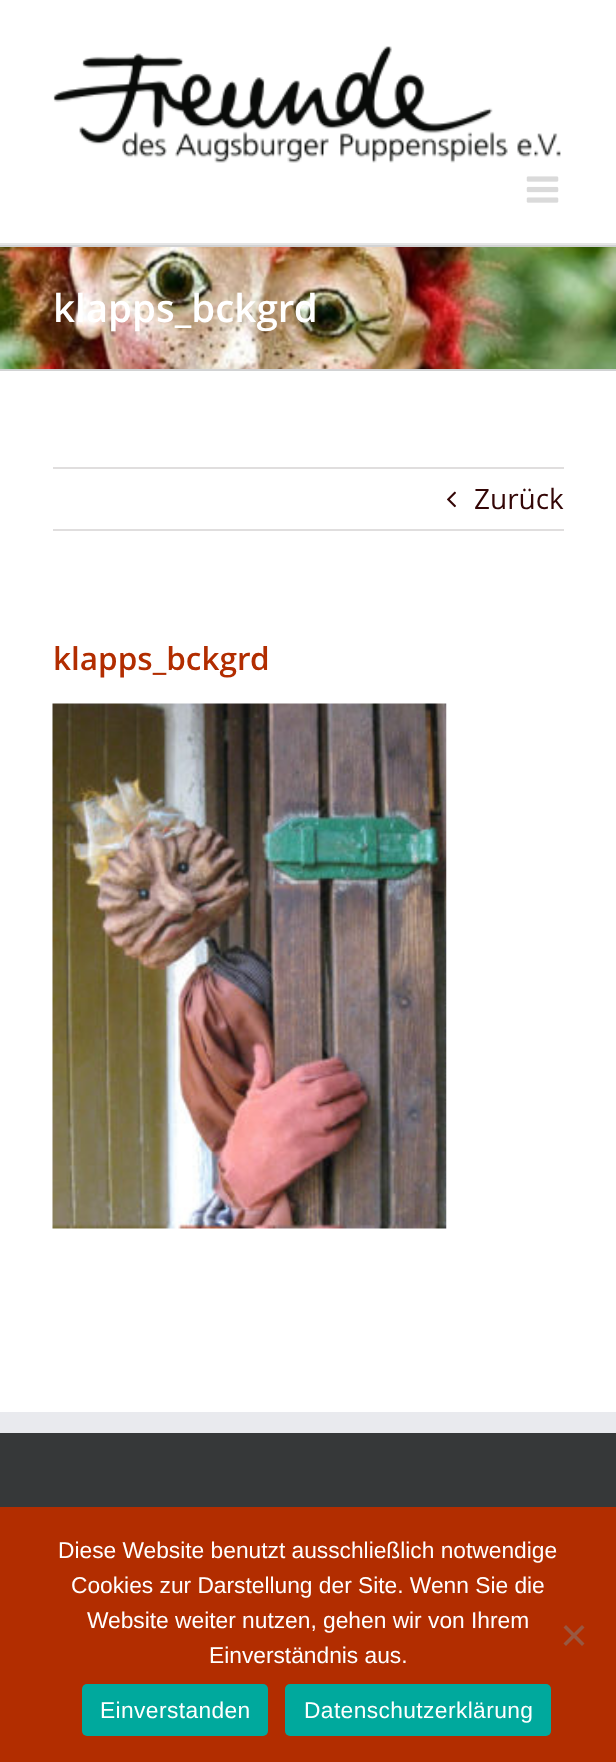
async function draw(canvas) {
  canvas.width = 616;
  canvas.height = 1762;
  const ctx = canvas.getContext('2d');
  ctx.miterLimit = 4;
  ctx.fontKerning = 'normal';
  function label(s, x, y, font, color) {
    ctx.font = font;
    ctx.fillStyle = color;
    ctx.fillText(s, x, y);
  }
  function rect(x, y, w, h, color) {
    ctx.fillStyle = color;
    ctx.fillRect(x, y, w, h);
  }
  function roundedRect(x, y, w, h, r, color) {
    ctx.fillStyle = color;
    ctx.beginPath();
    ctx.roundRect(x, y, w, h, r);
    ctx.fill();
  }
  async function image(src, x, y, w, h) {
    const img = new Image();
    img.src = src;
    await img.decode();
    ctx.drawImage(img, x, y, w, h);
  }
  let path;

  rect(0, 0, 616, 1762, '#fff');
  rect(0, 243, 616, 2, '#e5e5e5');
  await image('assets/img1.png', 53, 46, 508, 117);
  await image('assets/img2.png', 526, 176, 33, 27);
  await image('assets/img3.png', 0, 247, 616, 122);
  rect(0, 245, 616, 2, '#d2d3d4');
  rect(0, 369, 616, 2, '#d2d3d4');
  label('klapps_bckgrd', 53, 322, '600 38.5px Open Sans', '#fff');
  rect(53, 467, 511, 2, '#e0dede');
  rect(53, 529, 511, 2, '#e0dede');
  await image('assets/img4.png', 447, 491, 9, 17);
  label('Zurück', 474, 509, '28px Open Sans', '#330606');
  label('klapps_bckgrd', 53, 670, '600 31.5px Open Sans', '#b22d00');
  await image('assets/img5.png', 52, 703, 395, 526);
  rect(0, 1433, 616, 74, '#363839');
  rect(0, 1412, 616, 21, '#e9eaee');
  rect(0, 1507, 616, 255, '#b22d00');
  label('Diese Website benutzt ausschließlich notwendige', 58, 1558, '22.75px Liberation Sans', '#fff');
  label('Cookies zur Darstellung der Site. Wenn Sie die', 71, 1593, '22.75px Liberation Sans', '#fff');
  label('Website weiter nutzen, gehen wir von Ihrem', 87, 1628, '22.75px Liberation Sans', '#fff');
  label('Einverständnis aus.', 209, 1663, '22.75px Liberation Sans', '#fff');
  ctx.fillStyle = '#995740';
  path = new Path2D('M582 1625L584.5 1627.5L566 1646L563.5 1643.5Z');
  ctx.fill(path);
  path = new Path2D('M563.5 1627.5L566 1625L584.5 1643.5L582 1646Z');
  ctx.fill(path);
  roundedRect(82, 1684, 186, 52, 5, '#00a99d');
  ctx.letterSpacing = '0.4px';
  label('Einverstanden', 100, 1718, '22.75px Liberation Sans', '#fff');
  roundedRect(285, 1684, 266, 52, 5, '#00a99d');
  label('Datenschutzerklärung', 304, 1718, '22.75px Liberation Sans', '#fff');
}

draw(document.querySelector('canvas'));
